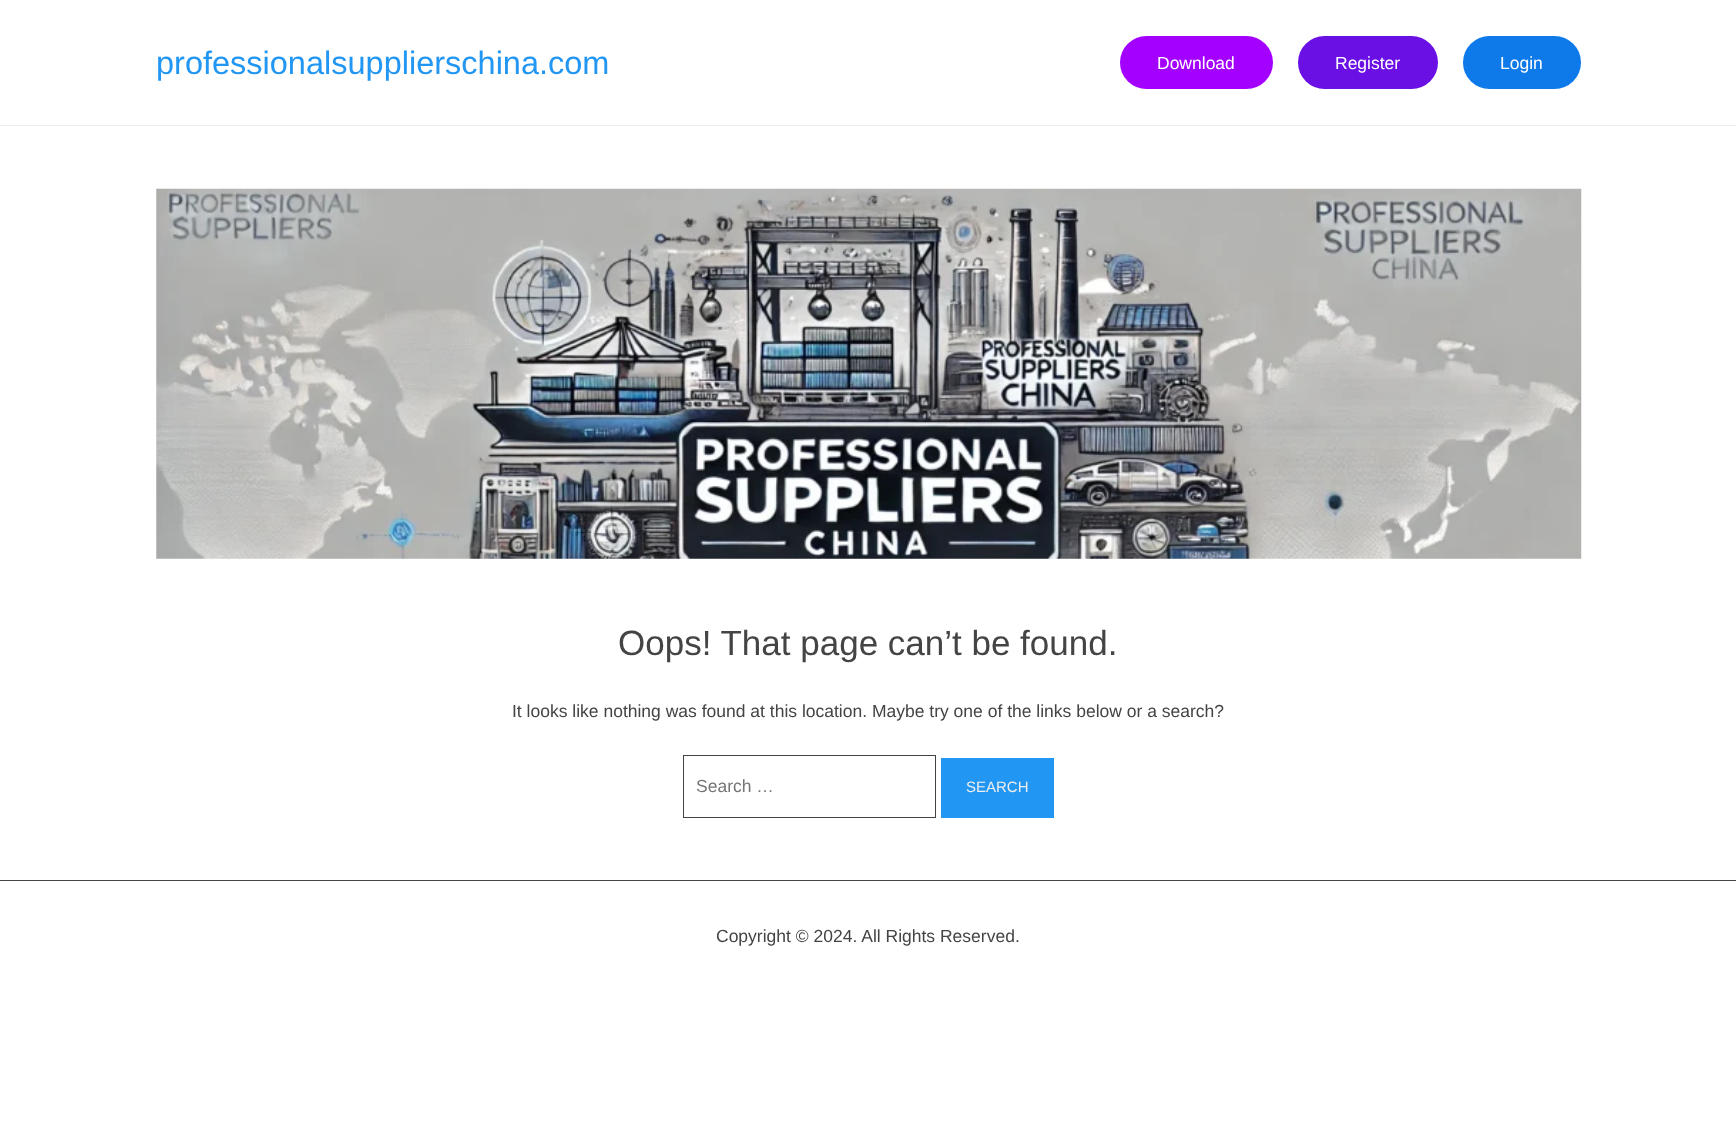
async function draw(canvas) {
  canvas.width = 1736;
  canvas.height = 1133;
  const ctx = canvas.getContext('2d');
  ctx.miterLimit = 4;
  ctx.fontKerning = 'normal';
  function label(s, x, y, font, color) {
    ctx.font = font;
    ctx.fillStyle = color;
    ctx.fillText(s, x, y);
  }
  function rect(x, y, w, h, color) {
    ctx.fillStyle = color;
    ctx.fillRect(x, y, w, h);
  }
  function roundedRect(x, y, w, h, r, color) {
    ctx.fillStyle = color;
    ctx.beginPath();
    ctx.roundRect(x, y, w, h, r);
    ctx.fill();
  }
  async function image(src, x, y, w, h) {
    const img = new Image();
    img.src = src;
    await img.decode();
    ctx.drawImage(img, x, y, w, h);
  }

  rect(0, 0, 1736, 1133, '#fff');
  rect(0, 125, 1736, 1, '#ececec');
  label('professionalsupplierschina.com', 156, 74, '32.5px Liberation Sans', '#2196f3');
  roundedRect(1120, 36, 153, 53, 26.5, '#a400ff');
  label('Download', 1157, 69, '17.5px Liberation Sans', '#fff');
  roundedRect(1298, 36, 140, 53, 26.5, '#6b10e5');
  label('Register', 1335, 69, '17.5px Liberation Sans', '#fff');
  roundedRect(1463, 36, 118, 53, 26.5, '#0e79e8');
  label('Login', 1500, 69, '17.5px Liberation Sans', '#fff');
  await image('assets/img1.png', 156, 188, 1426, 371);
  label('Oops! That page can’t be found.', 618, 655, '35px Liberation Sans', '#444');
  label('It looks like nothing was found at this location. Maybe try one of the links below or a search?', 512, 717, '17.5px Liberation Sans', '#444');
  ctx.strokeStyle = '#444';
  ctx.strokeRect(683.5, 755.5, 252, 62);
  label('Search …', 696, 792, '17.5px Liberation Sans', '#757575');
  rect(941, 758, 113, 60, '#2196f3');
  label('SEARCH', 966, 792, '15px Liberation Sans', '#eee');
  rect(0, 880, 1736, 1, '#444');
  label('Copyright © 2024. All Rights Reserved.', 716, 942, '17.5px Liberation Sans', '#444');
}

draw(document.querySelector('canvas'));
